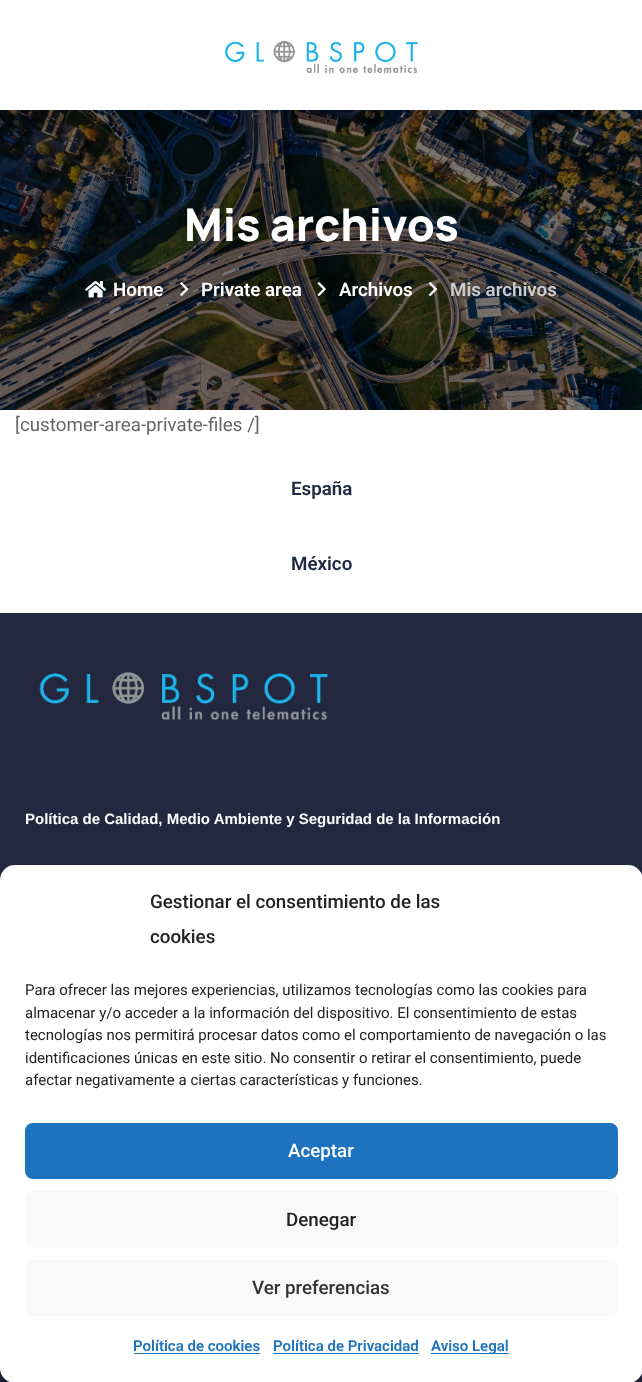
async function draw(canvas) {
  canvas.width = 642;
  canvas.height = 1382;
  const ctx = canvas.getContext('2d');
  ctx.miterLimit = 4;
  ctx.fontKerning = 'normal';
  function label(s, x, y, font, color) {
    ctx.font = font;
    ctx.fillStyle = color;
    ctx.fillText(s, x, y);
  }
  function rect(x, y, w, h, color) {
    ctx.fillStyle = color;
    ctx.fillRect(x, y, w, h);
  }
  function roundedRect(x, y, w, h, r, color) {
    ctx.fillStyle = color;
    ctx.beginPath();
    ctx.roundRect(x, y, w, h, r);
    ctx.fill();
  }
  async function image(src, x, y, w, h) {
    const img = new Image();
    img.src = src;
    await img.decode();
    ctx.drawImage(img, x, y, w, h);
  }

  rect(0, 0, 642, 1382, '#fff');
  await image('assets/img1.png', 225, 40, 193, 33);
  await image('assets/img2.png', 0, 110, 642, 300);
  label('Mis archivos', 184, 241, '800 45px Manrope', '#fff');
  await image('assets/img3.png', 85, 281, 22, 17);
  label('Home', 113, 296, '600 18.75px Roboto', '#fff');
  await image('assets/img4.png', 180, 282, 9, 15);
  label('Private area', 201, 296, '600 18.75px Roboto', '#fff');
  await image('assets/img5.png', 317, 282, 9, 14);
  label('Archivos', 339, 296, '600 18.75px Roboto', '#fff');
  await image('assets/img6.png', 428, 282, 10, 15);
  label('Mis archivos', 450, 296, '600 18.75px Roboto', '#ccc');
  label('[customer-area-private-files /]', 15, 431, '18.75px Roboto', '#666');
  label('España', 291, 495, '600 18.75px Roboto', '#202942');
  label('México', 291, 570, '600 18.75px Roboto', '#202942');
  rect(0, 613, 642, 769, '#23283f');
  await image('assets/img7.png', 39, 672, 289, 48);
  label('Política de Calidad, Medio Ambiente y Seguridad de la Información', 25, 824, 'bold 15px Liberation Sans', '#fff');
  ctx.fillStyle = '#0000003b';
  ctx.filter = 'blur(4px)';
  ctx.beginPath();
  ctx.roundRect(0, 873, 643, 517, 15);
  ctx.fill();
  ctx.filter = 'none';
  roundedRect(0, 865, 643, 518, 15, '#fff');
  label('Gestionar el consentimiento de las', 150, 908, '500 18.75px Roboto', '#222');
  label('cookies', 150, 943, '500 18.75px Roboto', '#222');
  label('Para ofrecer las mejores experiencias, utilizamos tecnologías como las cookies para', 25, 995, '15px Roboto', '#222');
  label('almacenar y/o acceder a la información del dispositivo. El consentimiento de estas', 25, 1018, '15px Roboto', '#222');
  label('tecnologías nos permitirá procesar datos como el comportamiento de navegación o las', 25, 1040, '15px Roboto', '#222');
  label('identificaciones únicas en este sitio. No consentir o retirar el consentimiento, puede', 25, 1063, '15px Roboto', '#222');
  label('afectar negativamente a ciertas características y funciones.', 25, 1085, '15px Roboto', '#222');
  roundedRect(25, 1123, 593, 56, 8, '#1e73be');
  label('Aceptar', 288, 1157, '500 18.75px Roboto', '#fff');
  roundedRect(25, 1191, 593, 57, 8, '#f9f9f9');
  label('Denegar', 286, 1226, '500 18.75px Roboto', '#222');
  roundedRect(25, 1260, 593, 56, 8, '#f9f9f9');
  label('Ver preferencias', 252, 1294, '500 18.75px Roboto', '#333');
  label('Política de cookies', 133, 1351, '600 15px Roboto', '#1e73be');
  rect(134, 1353, 126, 1, '#1e73be');
  label('Política de Privacidad', 273, 1351, '600 15px Roboto', '#1e73be');
  rect(273, 1353, 146, 1, '#1e73be');
  rect(431, 1353, 78, 1, '#1e73be');
  label('Aviso Legal', 431, 1351, '600 15px Roboto', '#1e73be');
}

draw(document.querySelector('canvas'));
